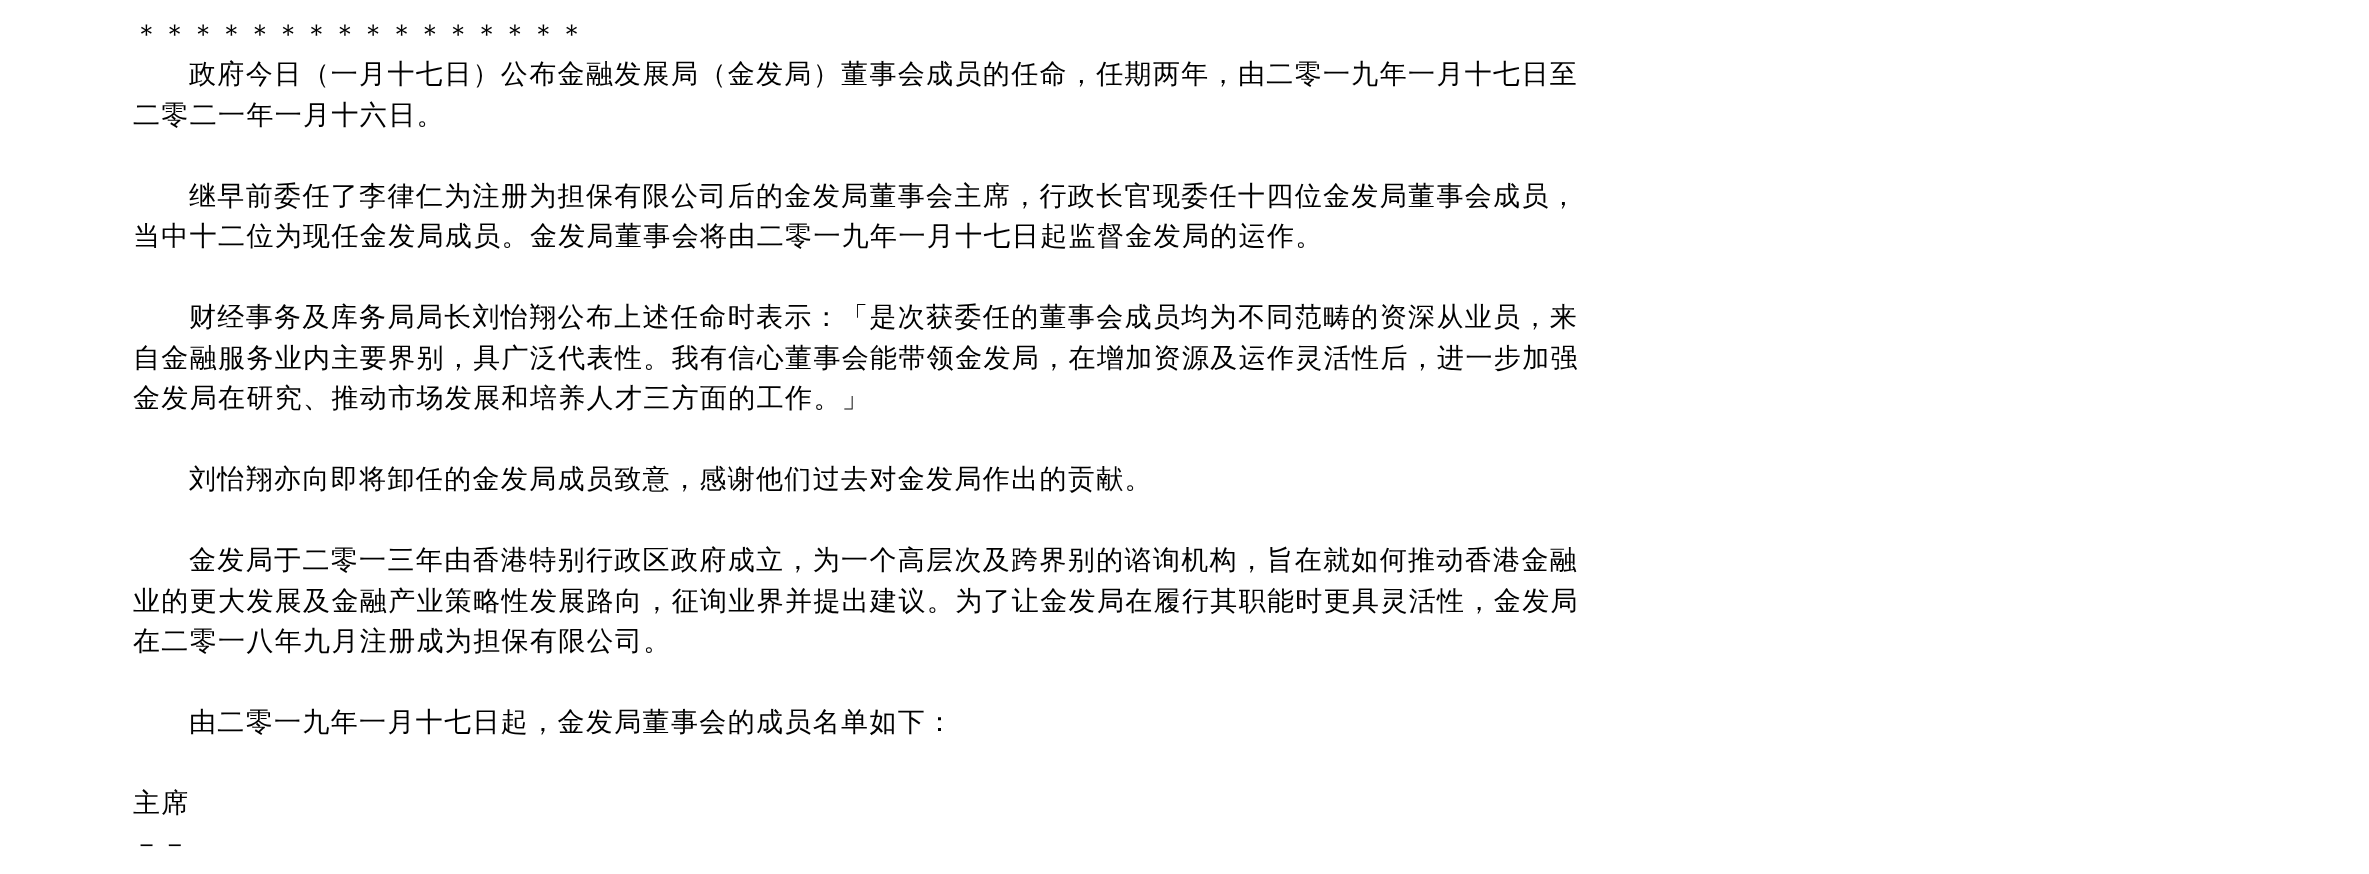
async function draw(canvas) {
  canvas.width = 2369;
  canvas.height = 874;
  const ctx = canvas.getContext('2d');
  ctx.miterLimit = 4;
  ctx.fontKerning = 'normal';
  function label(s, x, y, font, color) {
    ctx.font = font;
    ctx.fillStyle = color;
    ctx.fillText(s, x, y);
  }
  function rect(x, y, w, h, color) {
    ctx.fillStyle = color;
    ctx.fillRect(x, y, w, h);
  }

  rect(0, 0, 2369, 874, '#fff');
  ctx.letterSpacing = '1.35px';
  label('＊＊＊＊＊＊＊＊＊＊＊＊＊＊＊＊', 133, 43, '500 27px WenQuanYi Zen Hei', '#000');
  label('政府今日（一月十七日）公布金融发展局（金发局）董事会成员的任命，任期两年，由二零一九年一月十七日至', 189, 83, '500 27px WenQuanYi Zen Hei', '#000');
  label('二零二一年一月十六日。', 133, 124, '500 27px WenQuanYi Zen Hei', '#000');
  label('继早前委任了李律仁为注册为担保有限公司后的金发局董事会主席，行政长官现委任十四位金发局董事会成员，', 189, 205, '500 27px WenQuanYi Zen Hei', '#000');
  label('当中十二位为现任金发局成员。金发局董事会将由二零一九年一月十七日起监督金发局的运作。', 133, 245, '500 27px WenQuanYi Zen Hei', '#000');
  label('财经事务及库务局局长刘怡翔公布上述任命时表示：「是次获委任的董事会成员均为不同范畴的资深从业员，来', 189, 326, '500 27px WenQuanYi Zen Hei', '#000');
  label('自金融服务业内主要界别，具广泛代表性。我有信心董事会能带领金发局，在增加资源及运作灵活性后，进一步加强', 133, 367, '500 27px WenQuanYi Zen Hei', '#000');
  label('金发局在研究、推动市场发展和培养人才三方面的工作。」', 133, 407, '500 27px WenQuanYi Zen Hei', '#000');
  label('刘怡翔亦向即将卸任的金发局成员致意，感谢他们过去对金发局作出的贡献。', 189, 488, '500 27px WenQuanYi Zen Hei', '#000');
  label('金发局于二零一三年由香港特别行政区政府成立，为一个高层次及跨界别的谘询机构，旨在就如何推动香港金融', 189, 569, '500 27px WenQuanYi Zen Hei', '#000');
  label('业的更大发展及金融产业策略性发展路向，征询业界并提出建议。为了让金发局在履行其职能时更具灵活性，金发局', 133, 610, '500 27px WenQuanYi Zen Hei', '#000');
  label('在二零一八年九月注册成为担保有限公司。', 133, 650, '500 27px WenQuanYi Zen Hei', '#000');
  label('由二零一九年一月十七日起，金发局董事会的成员名单如下：', 189, 731, '500 27px WenQuanYi Zen Hei', '#000');
  label('主席', 133, 812, '500 27px WenQuanYi Zen Hei', '#000');
  label('－－', 133, 853, '500 27px WenQuanYi Zen Hei', '#000');
}

draw(document.querySelector('canvas'));
